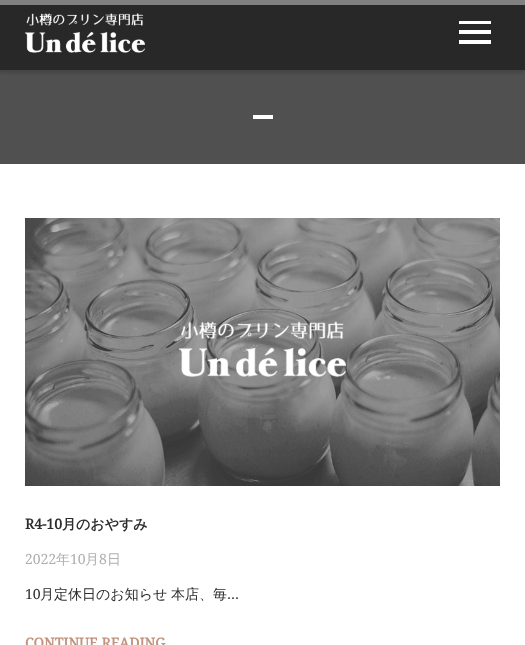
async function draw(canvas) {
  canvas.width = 525;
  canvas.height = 645;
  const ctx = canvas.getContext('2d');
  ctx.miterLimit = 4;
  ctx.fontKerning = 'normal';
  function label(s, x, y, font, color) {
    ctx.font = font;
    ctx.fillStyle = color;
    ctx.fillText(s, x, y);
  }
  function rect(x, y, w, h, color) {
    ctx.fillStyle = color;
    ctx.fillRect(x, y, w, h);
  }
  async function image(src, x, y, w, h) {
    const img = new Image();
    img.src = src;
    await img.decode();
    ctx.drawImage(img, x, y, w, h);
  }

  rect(0, 0, 525, 645, '#fff');
  rect(0, 0, 525, 5, '#808080');
  rect(0, 70, 525, 94, '#505050');
  rect(0, 5, 525, 65, '#282828');
  ctx.save();
  ctx.beginPath();
  ctx.rect(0, 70, 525, 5);
  ctx.clip();
  ctx.fillStyle = '#0000002e';
  ctx.filter = 'blur(2.5px)';
  ctx.beginPath();
  ctx.rect(-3, -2, 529, 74);
  ctx.fill();
  ctx.filter = 'none';
  ctx.restore();
  await image('assets/img1.png', 24, 13, 121, 40);
  rect(459, 30, 32, 4, '#fff');
  rect(459, 21, 32, 3, '#fff');
  rect(459, 40, 32, 4, '#fff');
  rect(253, 115, 20, 4, '#fff');
  await image('assets/img2.png', 25, 218, 475, 268);
  label('R4-10', 25, 529, 'bold 14px Droid Serif', '#2d2d2d');
  label('月のおやすみ', 62, 529, 'bold 14px WenQuanYi Zen Hei', '#2d2d2d');
  label('2022', 25, 564, '14px Droid Serif', '#afafaf');
  label('年', 56, 564, '500 14px WenQuanYi Zen Hei', '#afafaf');
  label('10', 70, 564, '14px Droid Serif', '#afafaf');
  label('月', 85, 564, '500 14px WenQuanYi Zen Hei', '#afafaf');
  label('8', 99, 564, '14px Droid Serif', '#afafaf');
  label('日', 107, 564, '500 14px WenQuanYi Zen Hei', '#afafaf');
  label('10', 25, 599, '14px Droid Serif', '#2d2d2d');
  label('月定休日のお知らせ', 40, 599, '500 14px WenQuanYi Zen Hei', '#2d2d2d');
  label('本店、毎', 171, 599, '500 14px WenQuanYi Zen Hei', '#2d2d2d');
  label('…', 227, 599, '14px Droid Serif', '#2d2d2d');
  label('CONTINUE READING', 25, 648, 'bold 14px Droid Serif', '#c3917d');
}

draw(document.querySelector('canvas'));
